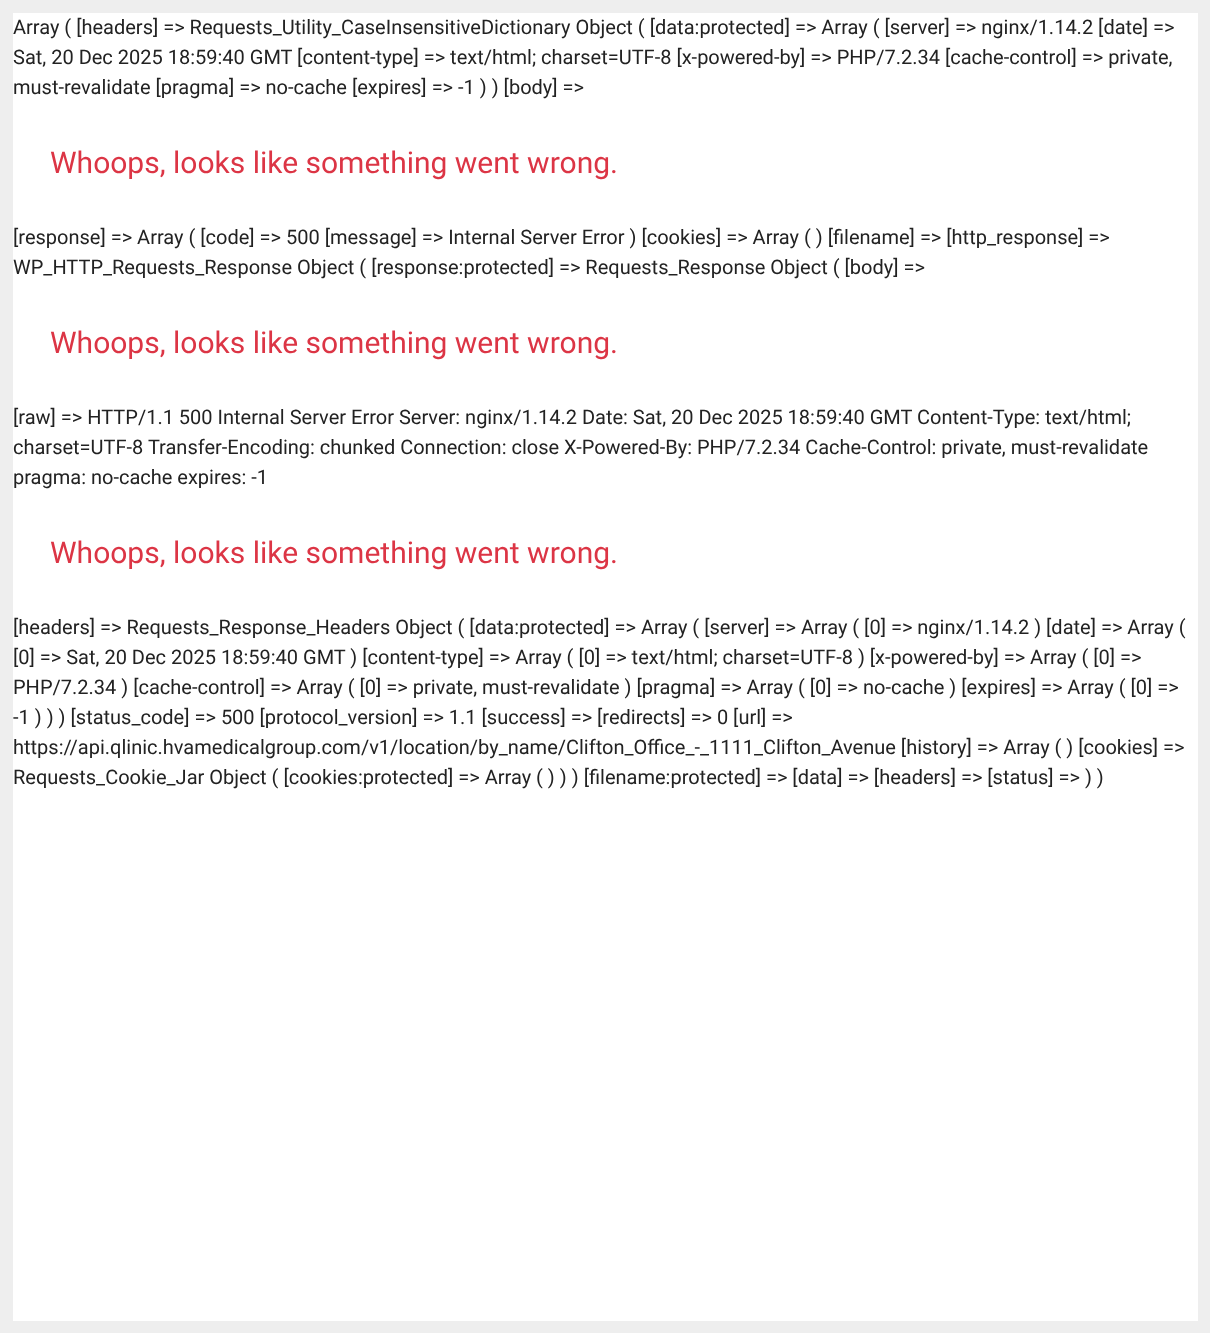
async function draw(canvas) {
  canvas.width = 1210;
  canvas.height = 1333;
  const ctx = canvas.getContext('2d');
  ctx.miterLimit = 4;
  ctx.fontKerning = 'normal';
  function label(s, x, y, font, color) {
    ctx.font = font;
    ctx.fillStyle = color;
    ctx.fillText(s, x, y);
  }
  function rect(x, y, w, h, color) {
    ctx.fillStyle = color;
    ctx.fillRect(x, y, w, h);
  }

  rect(0, 0, 1210, 1333, '#eee');
  rect(13, 13, 1185, 1308, '#fff');
  label('Array ( [headers] => Requests_Utility_CaseInsensitiveDictionary Object ( [data:protected] => Array ( [server] => nginx/1.14.2 [date] =>', 13, 34, '20px Roboto', '#222');
  label('Sat, 20 Dec 2025 18:59:40 GMT [content-type] => text/html; charset=UTF-8 [x-powered-by] => PHP/7.2.34 [cache-control] => private,', 13, 64, '20px Roboto', '#222');
  label('must-revalidate [pragma] => no-cache [expires] => -1 ) ) [body] =>', 13, 94, '20px Roboto', '#222');
  label('Whoops, looks like something went wrong.', 50, 173, '30px Roboto', '#dc3545');
  label('[response] => Array ( [code] => 500 [message] => Internal Server Error ) [cookies] => Array ( ) [filename] => [http_response] =>', 13, 244, '20px Roboto', '#222');
  label('WP_HTTP_Requests_Response Object ( [response:protected] => Requests_Response Object ( [body] =>', 13, 274, '20px Roboto', '#222');
  label('Whoops, looks like something went wrong.', 50, 353, '30px Roboto', '#dc3545');
  label('[raw] => HTTP/1.1 500 Internal Server Error Server: nginx/1.14.2 Date: Sat, 20 Dec 2025 18:59:40 GMT Content-Type: text/html;', 13, 424, '20px Roboto', '#222');
  label('charset=UTF-8 Transfer-Encoding: chunked Connection: close X-Powered-By: PHP/7.2.34 Cache-Control: private, must-revalidate', 13, 454, '20px Roboto', '#222');
  label('pragma: no-cache expires: -1', 13, 484, '20px Roboto', '#222');
  label('Whoops, looks like something went wrong.', 50, 563, '30px Roboto', '#dc3545');
  label('[headers] => Requests_Response_Headers Object ( [data:protected] => Array ( [server] => Array ( [0] => nginx/1.14.2 ) [date] => Array (', 13, 634, '20px Roboto', '#222');
  label('[0] => Sat, 20 Dec 2025 18:59:40 GMT ) [content-type] => Array ( [0] => text/html; charset=UTF-8 ) [x-powered-by] => Array ( [0] =>', 13, 664, '20px Roboto', '#222');
  label('PHP/7.2.34 ) [cache-control] => Array ( [0] => private, must-revalidate ) [pragma] => Array ( [0] => no-cache ) [expires] => Array ( [0] =>', 13, 694, '20px Roboto', '#222');
  label('-1 ) ) ) [status_code] => 500 [protocol_version] => 1.1 [success] => [redirects] => 0 [url] =>', 13, 724, '20px Roboto', '#222');
  label('https://api.qlinic.hvamedicalgroup.com/v1/location/by_name/Clifton_Office_-_1111_Clifton_Avenue [history] => Array ( ) [cookies] =>', 13, 754, '20px Roboto', '#222');
  label('Requests_Cookie_Jar Object ( [cookies:protected] => Array ( ) ) ) [filename:protected] => [data] => [headers] => [status] => ) )', 13, 784, '20px Roboto', '#222');
}

draw(document.querySelector('canvas'));
